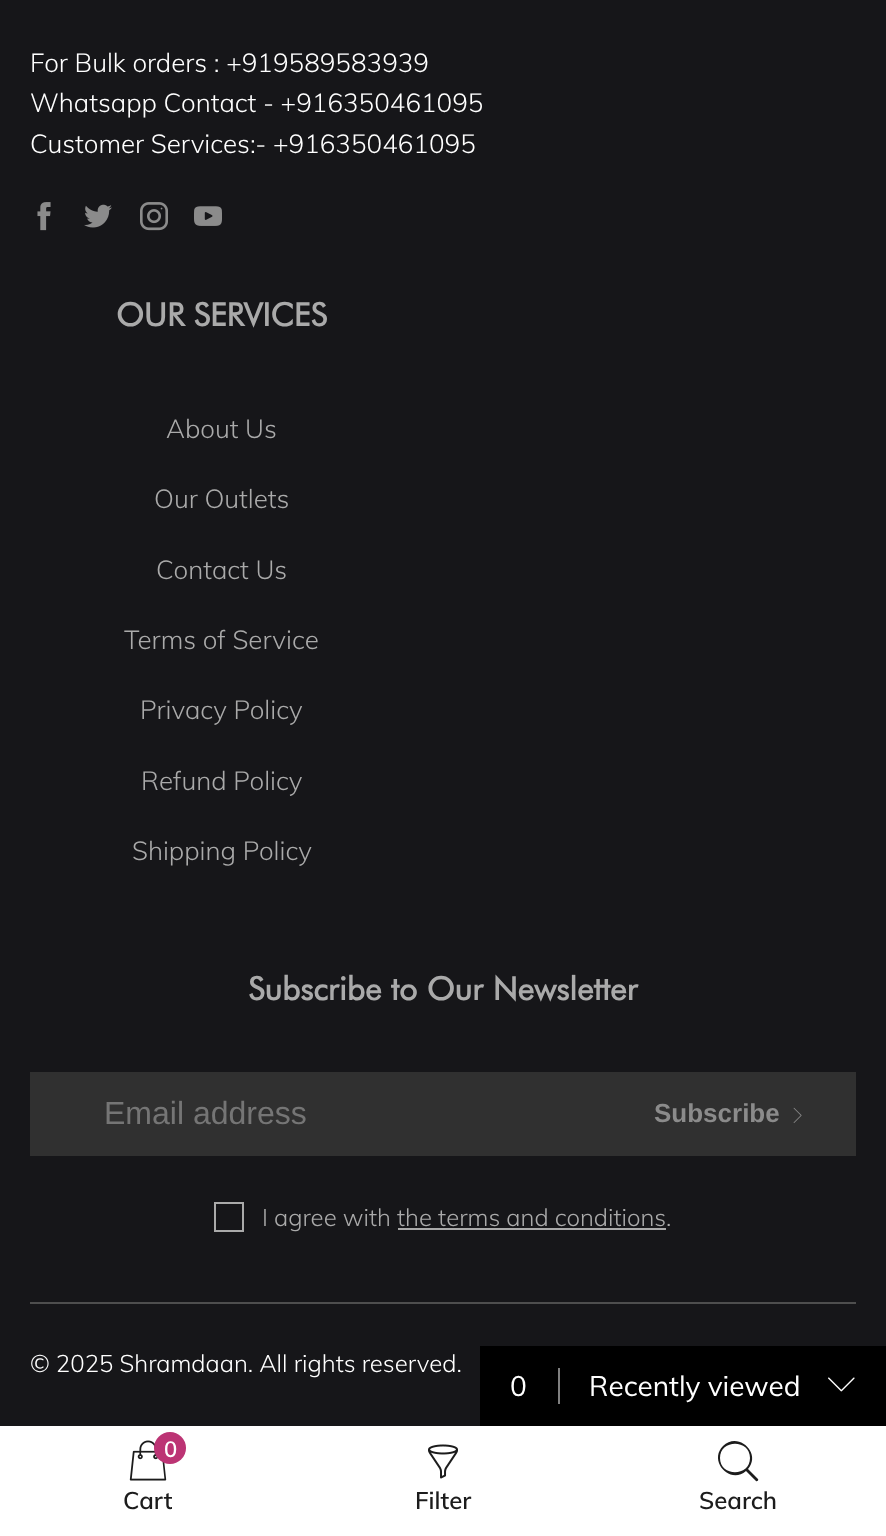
async function draw(canvas) {
  canvas.width = 886;
  canvas.height = 1536;
  const ctx = canvas.getContext('2d');
  ctx.miterLimit = 4;
  ctx.fontKerning = 'normal';
  function label(s, x, y, font, color) {
    ctx.font = font;
    ctx.fillStyle = color;
    ctx.fillText(s, x, y);
  }
  function rect(x, y, w, h, color) {
    ctx.fillStyle = color;
    ctx.fillRect(x, y, w, h);
  }
  async function image(src, x, y, w, h) {
    const img = new Image();
    img.src = src;
    await img.decode();
    ctx.drawImage(img, x, y, w, h);
  }
  let path;

  rect(0, 0, 886, 1536, '#161619');
  label('For Bulk orders : +919589583939', 30, 72, '300 26px Muli', '#fff');
  label('Whatsapp Contact - +916350461095', 30, 112, '300 26px Muli', '#fff');
  label('Customer Services:- +916350461095', 30, 153, '300 26px Muli', '#fff');
  await image('assets/img1.png', 37, 202, 14, 29);
  await image('assets/img2.png', 84, 204, 28, 24);
  await image('assets/img3.png', 140, 202, 28, 29);
  await image('assets/img4.png', 194, 206, 28, 20);
  label('OUR SERVICES', 116, 326, 'bold 32px Futura', '#aaa');
  label('About Us', 166, 438, '300 26px Muli', '#aaa');
  label('Our Outlets', 154, 508, '300 26px Muli', '#aaa');
  label('Contact Us', 156, 579, '300 26px Muli', '#aaa');
  label('Terms of Service', 124, 649, '300 26px Muli', '#aaa');
  label('Privacy Policy', 140, 719, '300 26px Muli', '#aaa');
  label('Refund Policy', 141, 790, '300 26px Muli', '#aaa');
  label('Shipping Policy', 132, 860, '300 26px Muli', '#aaa');
  label('Subscribe to Our Newsletter', 248, 1000, 'bold 32px Futura', '#aaa');
  rect(30, 1072, 826, 84, '#303030');
  label('Email address', 104, 1124, '32px Liberation Sans', '#757575');
  label('Subscribe', 654, 1122, 'bold 26px Liberation Sans', '#8b8b8b');
  await image('assets/img5.png', 793, 1107, 9, 16);
  ctx.strokeStyle = '#aaa';
  ctx.lineWidth = 2;
  ctx.strokeRect(215, 1203, 28, 28);
  label('I agree with the terms and conditions.', 262, 1226, '300 24px Muli', '#aaa');
  rect(398, 1228, 268, 2, '#aaa');
  rect(30, 1302, 826, 2, '#4e4e4e');
  label('© 2025 Shramdaan. All rights reserved.', 30, 1372, '300 24px Muli', '#fff');
  rect(480, 1346, 406, 80, '#000');
  label('0', 510, 1396, '28px Muli', '#fff');
  rect(558, 1368, 2, 36, '#808080');
  label('Recently viewed', 589, 1396, '28px Muli', '#fff');
  await image('assets/img6.png', 828, 1377, 27, 15);
  rect(0, 1426, 886, 110, '#fff');
  await image('assets/img7.png', 129, 1440, 38, 41);
  ctx.fillStyle = '#bc3474';
  ctx.beginPath();
  ctx.arc(170, 1448, 16, 0, 2 * Math.PI);
  ctx.fill();
  ctx.letterSpacing = '-2px';
  label('0', 164, 1457, '600 22px Muli', '#fff');
  ctx.letterSpacing = '0px';
  label('Cart', 123, 1509, '600 24px Muli', '#1c1c1c');
  await image('assets/img8.png', 428, 1444, 30, 35);
  label('Filter', 415, 1509, '600 24px Muli', '#1c1c1c');
  path = new Path2D('M758 1479L748 1469C762 1453 738 1431 723 1446C708 1461 730 1485 746 1471L756 1481C757 1482 759 1480 758 1479ZM720 1458C720 1439 750 1439 750 1458C750 1477 720 1477 720 1458Z');
  ctx.fill(path);
  label('Search', 699, 1509, '600 24px Muli', '#1c1c1c');
}

draw(document.querySelector('canvas'));
